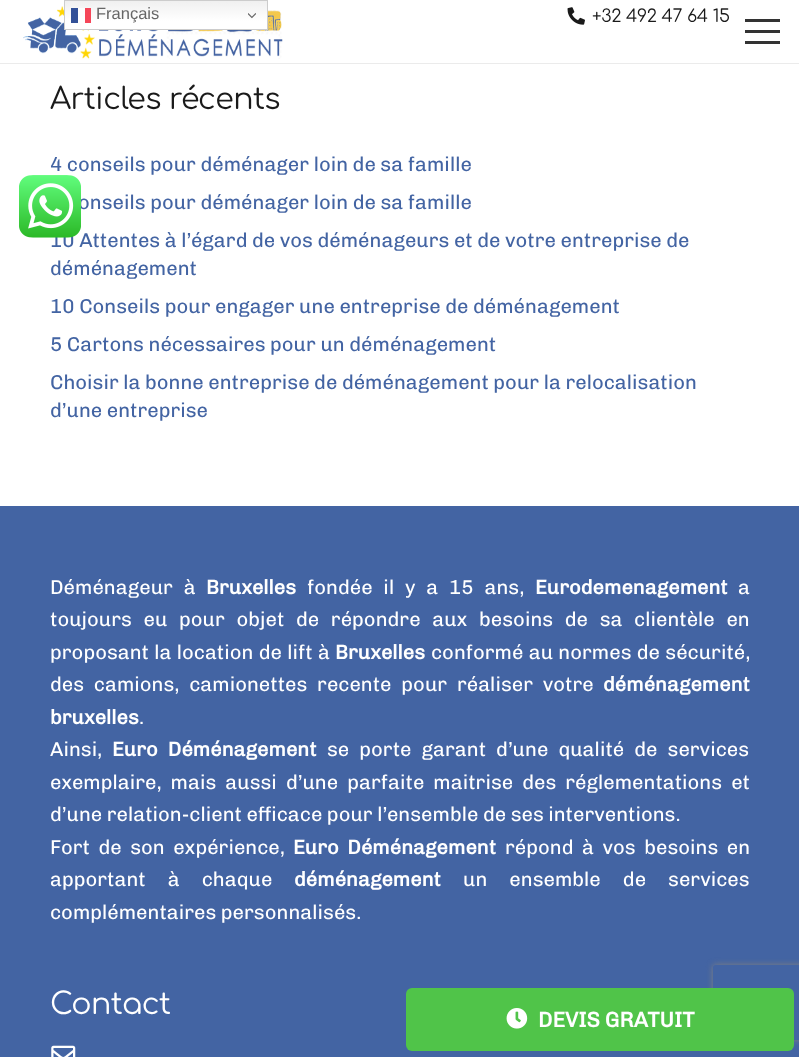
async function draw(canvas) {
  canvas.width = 799;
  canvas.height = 1057;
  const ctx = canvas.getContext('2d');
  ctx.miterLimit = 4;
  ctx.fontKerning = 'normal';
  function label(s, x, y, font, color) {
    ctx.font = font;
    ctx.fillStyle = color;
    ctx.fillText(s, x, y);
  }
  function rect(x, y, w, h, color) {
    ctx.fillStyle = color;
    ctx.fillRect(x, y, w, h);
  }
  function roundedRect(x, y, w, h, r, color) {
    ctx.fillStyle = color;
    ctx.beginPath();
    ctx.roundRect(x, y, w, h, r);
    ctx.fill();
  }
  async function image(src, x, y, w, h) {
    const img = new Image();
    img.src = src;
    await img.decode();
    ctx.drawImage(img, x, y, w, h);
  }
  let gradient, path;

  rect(0, 0, 799, 1057, '#fff');
  await image('assets/img2.png', 23, 6, 260, 53);
  gradient = ctx.createLinearGradient(166, 0, 166, 30);
  gradient.addColorStop(0, '#efefef');
  gradient.addColorStop(0.7, '#fff');
  ctx.fillStyle = gradient;
  ctx.fillRect(65, 1, 202, 28);
  ctx.strokeStyle = '#ccc';
  ctx.strokeRect(64.5, 0.5, 203, 29);
  rect(71, 8, 7, 15, '#335198');
  rect(78, 8, 7, 15, '#ffffffcc');
  rect(85, 8, 6, 15, '#f54659');
  label('Français', 96, 19, '16.5px Liberation Sans', '#666');
  await image('assets/img1.png', 248, 13, 8, 6);
  rect(0, 63, 799, 1, '#ebebeb');
  await image('assets/img3.png', 567, 7, 18, 18);
  ctx.letterSpacing = '-0.3px';
  label('+32 492 47 64 15', 592, 22, '17.5px Comfortaa', '#1a1a1a');
  rect(745, 30, 35, 3, '#333');
  rect(745, 19, 35, 3, '#333');
  rect(745, 41, 35, 3, '#333');
  ctx.letterSpacing = '-0.6px';
  label('Articles récents', 50, 109, '30px Comfortaa', '#1a1a1a');
  ctx.letterSpacing = '0px';
  label('4 conseils pour déménager loin de sa famille', 50, 171, '500 20px Chivo', '#4364a3');
  label('onseils pour déménager loin de sa famille', 78, 209, '500 20px Chivo', '#4364a3');
  label('10 Attentes à l’égard de vos déménageurs et de votre entreprise de', 50, 247, '500 20px Chivo', '#4364a3');
  label('déménagement', 50, 275, '500 20px Chivo', '#4364a3');
  label('10 Conseils pour engager une entreprise de déménagement', 50, 313, '500 20px Chivo', '#4364a3');
  label('5 Cartons nécessaires pour un déménagement', 50, 351, '500 20px Chivo', '#4364a3');
  label('Choisir la bonne entreprise de déménagement pour la relocalisation', 50, 389, '500 20px Chivo', '#4364a3');
  label('d’une entreprise', 50, 417, '500 20px Chivo', '#4364a3');
  await image('assets/img4.png', 19, 175, 62, 63);
  rect(0, 506, 799, 551, '#4364a3');
  ctx.wordSpacing = '6.25px';
  label('Déménageur à', 50, 594, '500 20px Chivo', '#fff');
  ctx.wordSpacing = '0px';
  label('Bruxelles', 206, 594, 'bold 20px Chivo', '#fff');
  ctx.wordSpacing = '6.25px';
  label('fondée il y a 15 ans,', 307, 594, '500 20px Chivo', '#fff');
  ctx.wordSpacing = '0px';
  label('Eurodemenagement', 535, 594, 'bold 20px Chivo', '#fff');
  label('a', 738, 594, '500 20px Chivo', '#fff');
  ctx.wordSpacing = '7.1px';
  label('toujours eu pour objet de répondre aux besoins de sa clientèle en', 50, 626, '500 20px Chivo', '#fff');
  ctx.wordSpacing = '0.75px';
  label('proposant la location de lift à', 50, 659, '500 20px Chivo', '#fff');
  ctx.wordSpacing = '0px';
  label('Bruxelles', 335, 659, 'bold 20px Chivo', '#fff');
  ctx.wordSpacing = '0.75px';
  label('conformé au normes de sécurité,', 431, 659, '500 20px Chivo', '#fff');
  ctx.wordSpacing = '5.25px';
  label('des camions, camionettes recente pour réaliser votre', 50, 691, '500 20px Chivo', '#fff');
  ctx.wordSpacing = '0px';
  label('déménagement', 603, 691, 'bold 20px Chivo', '#fff');
  label('bruxelles', 50, 724, 'bold 20px Chivo', '#fff');
  label('.', 139, 724, '500 20px Chivo', '#fff');
  label('Ainsi,', 50, 756, '500 20px Chivo', '#fff');
  ctx.wordSpacing = '5.5px';
  label('Euro Déménagement', 112, 756, 'bold 20px Chivo', '#fff');
  label('se porte garant d’une qualité de services', 327, 756, '500 20px Chivo', '#fff');
  ctx.wordSpacing = '4.5px';
  label('exemplaire, mais aussi d’une parfaite maitrise des réglementations et', 50, 789, '500 20px Chivo', '#fff');
  ctx.wordSpacing = '0px';
  label('d’une relation-client efficace pour l’ensemble de ses interventions.', 50, 821, '500 20px Chivo', '#fff');
  ctx.wordSpacing = '4px';
  label('Fort de son expérience,', 50, 854, '500 20px Chivo', '#fff');
  label('Euro Déménagement', 293, 854, 'bold 20px Chivo', '#fff');
  label('répond à vos besoins en', 505, 854, '500 20px Chivo', '#fff');
  ctx.wordSpacing = '17.5px';
  label('apportant à chaque', 50, 886, '500 20px Chivo', '#fff');
  ctx.wordSpacing = '0px';
  label('déménagement', 294, 886, 'bold 20px Chivo', '#fff');
  ctx.wordSpacing = '17.5px';
  label('un ensemble de services', 463, 886, '500 20px Chivo', '#fff');
  ctx.wordSpacing = '0px';
  label('complémentaires personnalisés.', 50, 919, '500 20px Chivo', '#fff');
  ctx.letterSpacing = '-0.6px';
  label('Contact', 50, 1014, '30px Comfortaa', '#fff');
  ctx.save();
  path = new Path2D('M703 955H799V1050H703ZM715.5 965H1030.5C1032 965 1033 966 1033 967.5V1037.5C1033 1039 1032 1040 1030.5 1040H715.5C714 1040 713 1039 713 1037.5V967.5C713 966 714 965 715.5 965Z');
  ctx.clip(path, 'evenodd');
  ctx.fillStyle = '#808080';
  ctx.filter = 'blur(3px)';
  ctx.beginPath();
  ctx.roundRect(713, 965, 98, 75, 2.5);
  ctx.fill();
  ctx.filter = 'none';
  ctx.restore();
  roundedRect(406, 988, 388, 63, 6, '#50c449');
  await image('assets/img5.png', 506, 1008, 22, 21);
  ctx.letterSpacing = '0px';
  label('DEVIS GRATUIT', 538, 1027, 'bold 21.25px Chivo', '#fff');
  await image('assets/img6.png', 51, 1045, 25, 12);
}

draw(document.querySelector('canvas'));
